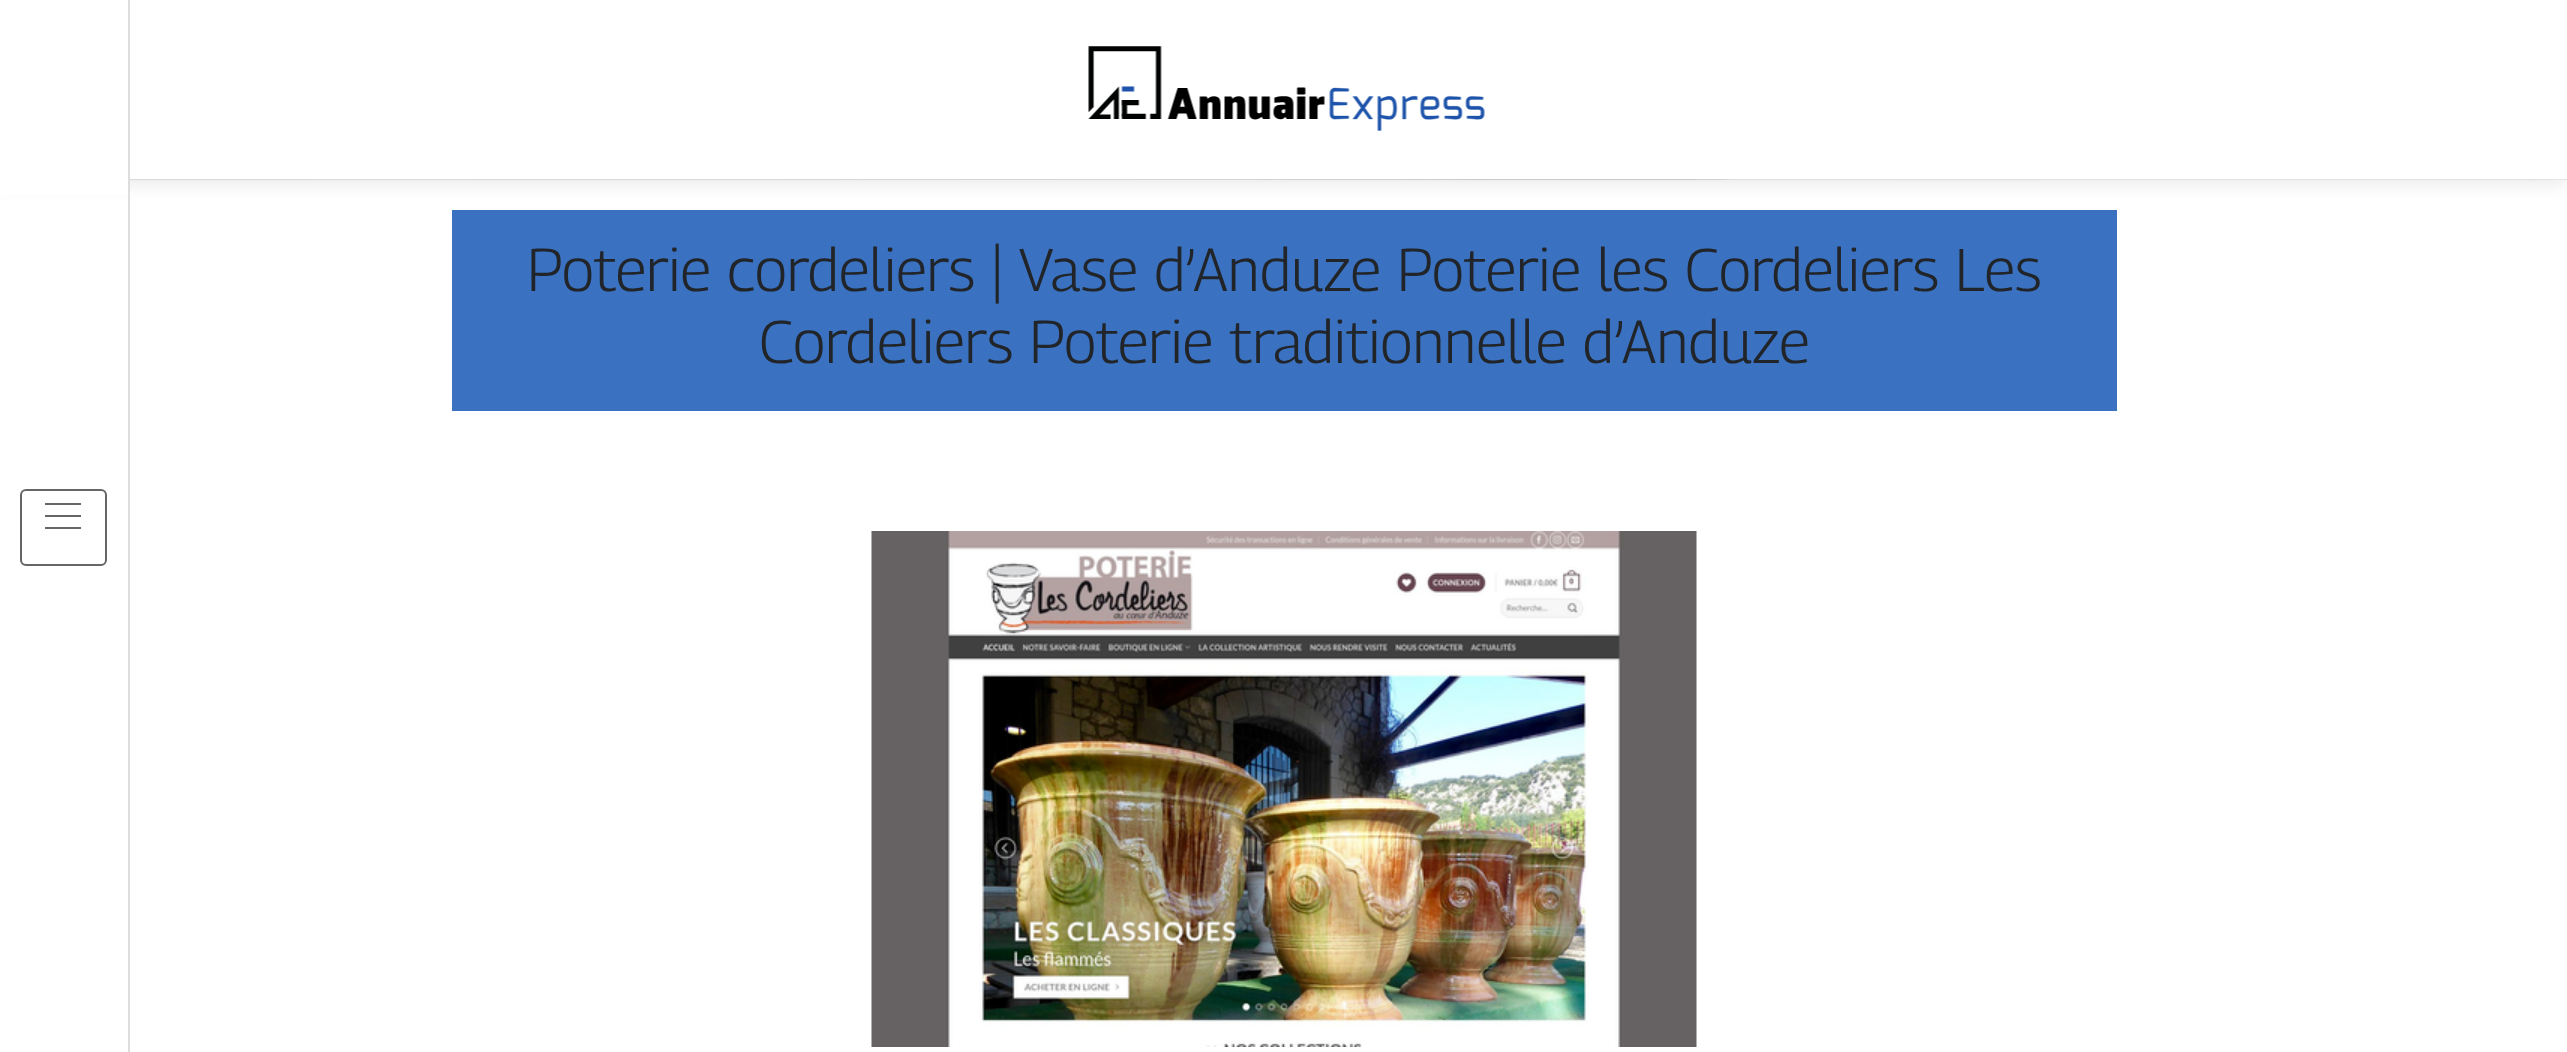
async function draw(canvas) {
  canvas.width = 2567;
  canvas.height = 1052;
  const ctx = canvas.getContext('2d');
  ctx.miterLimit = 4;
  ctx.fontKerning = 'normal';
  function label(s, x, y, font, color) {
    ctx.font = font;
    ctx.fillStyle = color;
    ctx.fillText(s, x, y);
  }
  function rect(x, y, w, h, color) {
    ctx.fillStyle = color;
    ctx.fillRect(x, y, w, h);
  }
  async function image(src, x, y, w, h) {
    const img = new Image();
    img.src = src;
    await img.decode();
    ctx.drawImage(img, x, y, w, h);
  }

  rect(0, 0, 2567, 1052, '#fff');
  await image('assets/img1.png', 130, 179, 2437, 1);
  rect(452, 210, 1665, 201, '#3a72c1');
  ctx.fillStyle = '#0000001a';
  ctx.filter = 'blur(10px)';
  ctx.beginPath();
  ctx.rect(0, 3, 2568, 179);
  ctx.fill();
  ctx.filter = 'none';
  rect(130, 0, 2437, 179, '#fff');
  rect(0, 0, 128, 195, '#fff');
  rect(128, 0, 2, 1052, '#ddd');
  ctx.beginPath();
  ctx.roundRect(21, 490, 85, 75, 5);
  ctx.strokeStyle = '#666';
  ctx.lineWidth = 2;
  ctx.stroke();
  rect(45, 503, 36, 2, '#666');
  rect(45, 515, 36, 2, '#666');
  rect(45, 527, 36, 2, '#666');
  await image('assets/img2.png', 1088, 46, 397, 85);
  label('Poterie cordeliers | Vase d’Anduze Poterie les Cordeliers Les', 527, 291, '100 60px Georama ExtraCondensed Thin', '#212529');
  label('Cordeliers Poterie traditionnelle d’Anduze', 759, 363, '100 60px Georama ExtraCondensed Thin', '#212529');
  await image('assets/img3.png', 871, 531, 826, 516);
}

draw(document.querySelector('canvas'));
